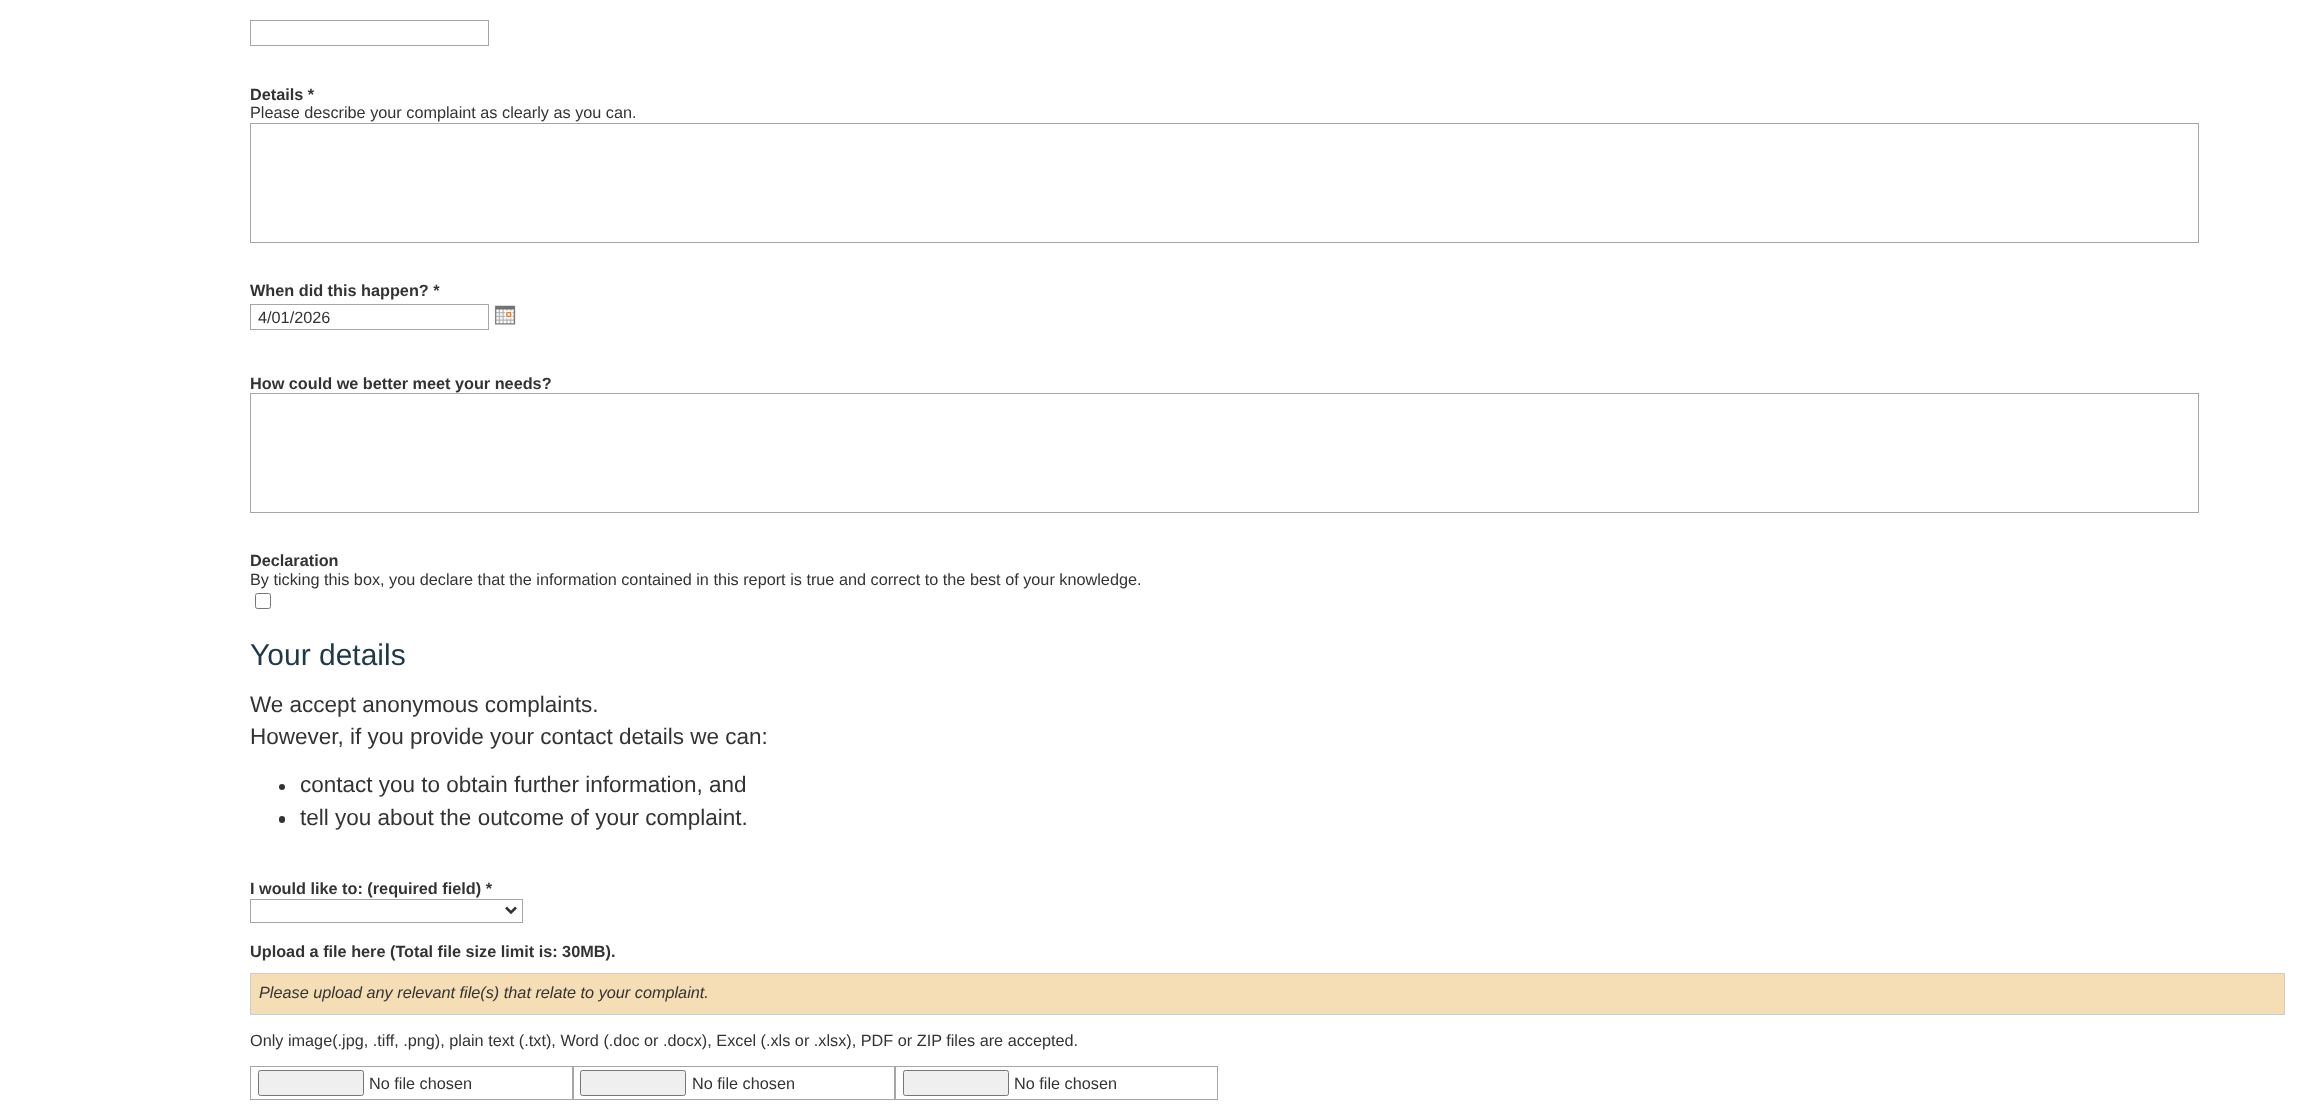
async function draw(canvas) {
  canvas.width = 2318;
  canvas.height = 1108;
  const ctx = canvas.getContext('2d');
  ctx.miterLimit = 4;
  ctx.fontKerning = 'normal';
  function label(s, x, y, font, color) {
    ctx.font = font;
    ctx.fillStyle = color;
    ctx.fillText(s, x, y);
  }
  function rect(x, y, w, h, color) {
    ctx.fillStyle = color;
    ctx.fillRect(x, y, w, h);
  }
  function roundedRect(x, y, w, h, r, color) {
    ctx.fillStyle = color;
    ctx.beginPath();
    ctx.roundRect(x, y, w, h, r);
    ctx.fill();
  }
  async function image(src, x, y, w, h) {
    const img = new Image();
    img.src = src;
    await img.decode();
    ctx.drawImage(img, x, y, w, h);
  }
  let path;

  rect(0, 0, 2318, 1108, '#fff');
  ctx.strokeStyle = '#a6a6a6';
  ctx.strokeRect(250.5, 20.5, 238, 25);
  label('Details *', 250, 100, 'bold 16.25px Liberation Sans', '#333');
  label('Please describe your complaint as clearly as you can.', 250, 118, '16.25px Liberation Sans', '#333');
  ctx.strokeRect(250.5, 123.5, 1948, 119);
  label('When did this happen? *', 250, 296, 'bold 16.25px Liberation Sans', '#333');
  ctx.strokeRect(250.5, 304.5, 238, 25);
  label('4/01/2026', 258, 323, '16.25px Liberation Sans', '#333');
  await image('assets/img1.png', 494, 305, 22, 20);
  label('How could we better meet your needs?', 250, 389, 'bold 16.25px Liberation Sans', '#333');
  ctx.strokeRect(250.5, 393.5, 1948, 119);
  label('Declaration', 250, 566, 'bold 16.25px Liberation Sans', '#333');
  label('By ticking this box, you declare that the information contained in this report is true and correct to the best of your knowledge.', 250, 585, '16.25px Liberation Sans', '#333');
  ctx.beginPath();
  ctx.roundRect(255.5, 593.5, 15, 15, 2);
  ctx.strokeStyle = '#767676';
  ctx.stroke();
  label('Your details', 250, 665, '30px Liberation Sans', '#1e394a');
  label('We accept anonymous complaints.', 250, 712, '22.5px Liberation Sans', '#333');
  label('However, if you provide your contact details we can:', 250, 744, '22.5px Liberation Sans', '#333');
  ctx.beginPath();
  ctx.arc(282, 787, 3, 0, 2 * Math.PI);
  ctx.fill();
  label('contact you to obtain further information, and', 300, 792, '22.5px Liberation Sans', '#333');
  roundedRect(279, 816, 6, 7, 3, '#333');
  label('tell you about the outcome of your complaint.', 300, 825, '22.5px Liberation Sans', '#333');
  label('I would like to: (required field) *', 250, 894, 'bold 16.25px Liberation Sans', '#333');
  ctx.strokeStyle = '#a6a6a6';
  ctx.strokeRect(250.5, 899.5, 272, 23);
  path = new Path2D('M506 907.5L511 912.5L516 907.5');
  ctx.strokeStyle = '#333';
  ctx.lineWidth = 2.5;
  ctx.stroke(path);
  label('Upload a file here (Total file size limit is: 30MB).', 250, 957, 'bold 16.25px Liberation Sans', '#333');
  ctx.fillStyle = '#f5ddb5';
  ctx.beginPath();
  ctx.rect(250.5, 973.5, 2034, 41);
  ctx.fill();
  ctx.strokeStyle = '#ccc';
  ctx.lineWidth = 1;
  ctx.stroke();
  label('Please upload any relevant file(s) that relate to your complaint.', 259, 998, 'italic 16.25px Liberation Sans', '#333');
  label('Only image(.jpg, .tiff, .png), plain text (.txt), Word (.doc or .docx), Excel (.xls or .xlsx), PDF or ZIP files are accepted.', 250, 1046, '16.25px Liberation Sans', '#333');
  ctx.strokeStyle = '#a6a6a6';
  ctx.strokeRect(250.5, 1066.5, 322, 33);
  ctx.fillStyle = '#efefef';
  ctx.beginPath();
  ctx.roundRect(258.5, 1070.5, 105, 25, 2);
  ctx.fill();
  ctx.strokeStyle = '#767676';
  ctx.stroke();
  label('No file chosen', 369, 1089, '16.25px Liberation Sans', '#333');
  ctx.strokeStyle = '#a6a6a6';
  ctx.strokeRect(573.5, 1066.5, 321, 33);
  ctx.fillStyle = '#efefef';
  ctx.beginPath();
  ctx.roundRect(580.5, 1070.5, 105, 25, 2);
  ctx.fill();
  ctx.strokeStyle = '#767676';
  ctx.stroke();
  label('No file chosen', 692, 1089, '16.25px Liberation Sans', '#333');
  ctx.strokeStyle = '#a6a6a6';
  ctx.strokeRect(895.5, 1066.5, 322, 33);
  ctx.fillStyle = '#efefef';
  ctx.beginPath();
  ctx.roundRect(903.5, 1070.5, 105, 25, 2);
  ctx.fill();
  ctx.strokeStyle = '#767676';
  ctx.stroke();
  label('No file chosen', 1014, 1089, '16.25px Liberation Sans', '#333');
}

draw(document.querySelector('canvas'));
